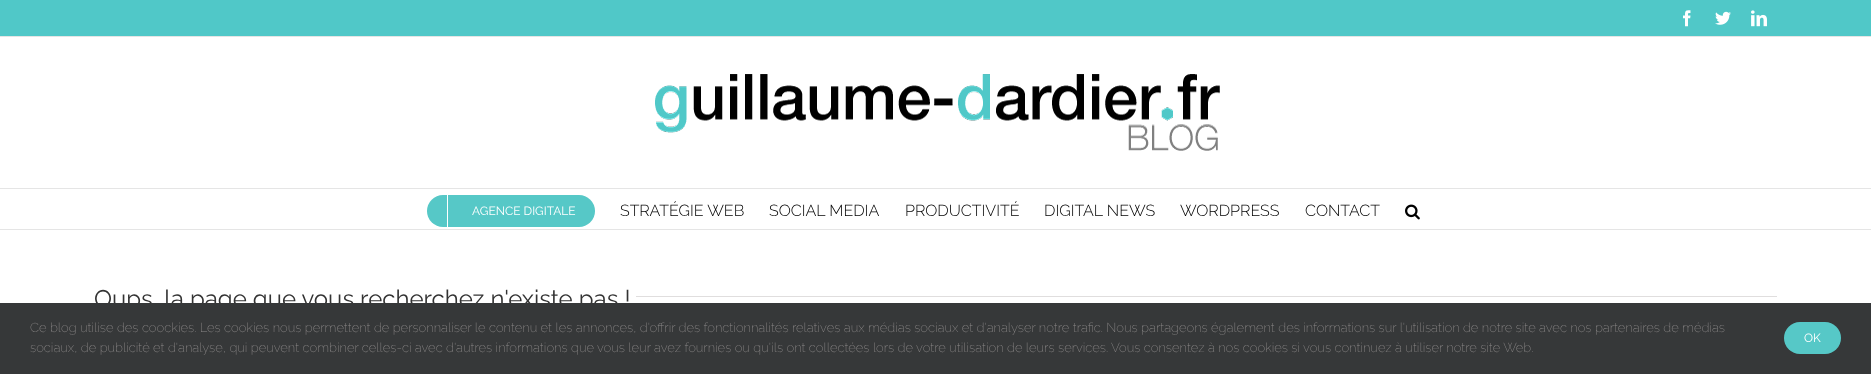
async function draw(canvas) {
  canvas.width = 1871;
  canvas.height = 374;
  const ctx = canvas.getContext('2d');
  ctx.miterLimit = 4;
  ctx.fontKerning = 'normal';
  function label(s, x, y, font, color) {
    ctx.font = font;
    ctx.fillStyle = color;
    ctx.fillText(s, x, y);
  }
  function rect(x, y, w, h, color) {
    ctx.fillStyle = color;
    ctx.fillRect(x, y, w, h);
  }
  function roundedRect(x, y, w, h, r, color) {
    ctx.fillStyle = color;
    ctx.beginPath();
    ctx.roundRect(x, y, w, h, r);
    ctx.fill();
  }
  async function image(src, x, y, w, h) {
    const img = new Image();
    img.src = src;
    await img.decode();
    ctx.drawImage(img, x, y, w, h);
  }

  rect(0, 0, 1871, 374, '#fff');
  rect(0, 0, 1871, 36, '#50c8c8');
  rect(0, 36, 1871, 1, '#e5e5e5');
  await image('assets/img1.png', 1683, 10, 8, 17);
  await image('assets/img2.png', 1715, 11, 16, 14);
  await image('assets/img3.png', 1751, 10, 16, 17);
  rect(0, 188, 1871, 1, '#e5e5e5');
  await image('assets/img4.png', 655, 74, 565, 77);
  rect(0, 229, 1871, 1, '#e5e5e5');
  roundedRect(427, 195, 168, 32, 16, '#56c8c7');
  rect(447, 195, 1, 32, '#fff');
  label('AGENCE DIGITALE', 472, 215, '12px Raleway', '#fff');
  label('STRATÉGIE WEB', 620, 216, '300 16px Raleway', '#000');
  label('SOCIAL MEDIA', 769, 216, '300 16px Raleway', '#000');
  label('PRODUCTIVITÉ', 905, 216, '300 16px Raleway', '#000');
  label('DIGITAL NEWS', 1044, 216, '300 16px Raleway', '#000');
  label('WORDPRESS', 1180, 216, '300 16px Raleway', '#000');
  label('CONTACT', 1305, 216, '300 16px Raleway', '#000');
  await image('assets/img5.png', 1405, 204, 15, 16);
  label('Oups, la page que vous recherchez n\'existe pas !', 94, 307, '24px Raleway', '#333');
  rect(636, 296, 1141, 1, '#e0dede');
  rect(0, 303, 1871, 71, '#363839');
  label('Ce blog utilise des coockies. Les cookies nous permettent de personnaliser le contenu et les annonces, d\'offrir des fonctionnalités relatives aux médias sociaux et d\'analyser notre trafic. Nous partageons également des informations sur l\'utilisation de notre site avec nos partenaires de médias', 30, 332, '200 13px Raleway', '#8c8989');
  label('sociaux, de publicité et d\'analyse, qui peuvent combiner celles-ci avec d\'autres informations que vous leur avez fournies ou qu\'ils ont collectées lors de votre utilisation de leurs services. Vous consentez à nos cookies si vous continuez à utiliser notre site Web.', 30, 352, '200 13px Raleway', '#8c8989');
  roundedRect(1784, 322, 57, 32, 16, '#56c8c7');
  label('OK', 1804, 342, '12px Raleway', '#fff');
}

draw(document.querySelector('canvas'));
